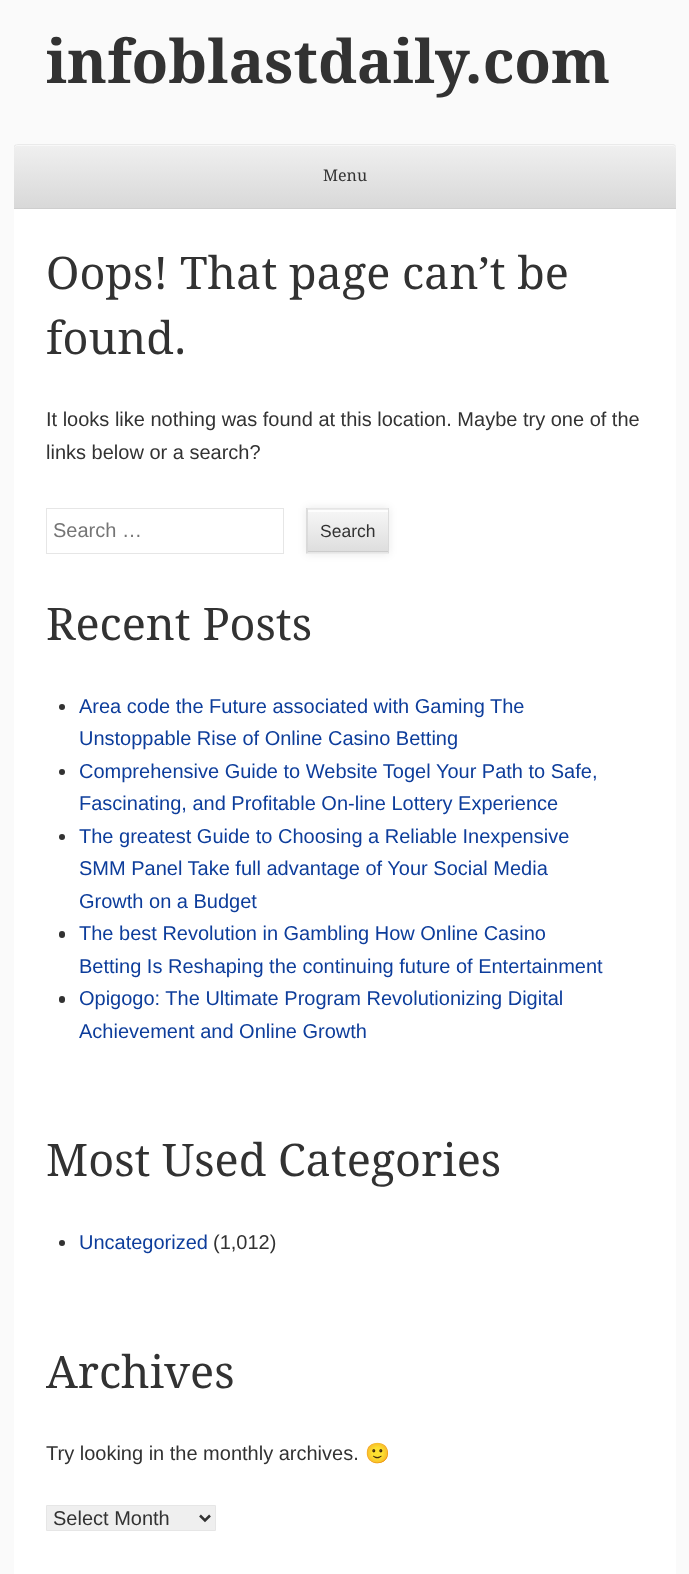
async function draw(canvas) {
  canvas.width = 689;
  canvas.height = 1574;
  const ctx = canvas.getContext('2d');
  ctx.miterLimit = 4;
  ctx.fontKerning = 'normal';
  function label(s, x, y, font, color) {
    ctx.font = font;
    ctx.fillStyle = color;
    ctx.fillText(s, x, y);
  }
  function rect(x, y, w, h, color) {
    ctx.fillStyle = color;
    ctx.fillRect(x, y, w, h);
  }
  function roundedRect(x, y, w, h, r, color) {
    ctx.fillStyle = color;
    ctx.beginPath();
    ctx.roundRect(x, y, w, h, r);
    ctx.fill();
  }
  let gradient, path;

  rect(0, 0, 689, 1574, '#fafafa');
  label('infoblastdaily.com', 46, 83, 'bold 60px Droid Serif', '#323232');
  ctx.fillStyle = '#fff';
  path = new Path2D('M18 144H672C674 144 676 146 676 148V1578H14V148C14 146 16 144 18 144Z');
  ctx.fill(path);
  ctx.fillStyle = '#f0f0f0';
  ctx.beginPath();
  ctx.roundRect(14, 144, 662, 65, [4, 4, 0, 0]);
  ctx.fill();
  gradient = ctx.createLinearGradient(345, 144, 345, 209);
  gradient.addColorStop(0, '#f0f0f0cc');
  gradient.addColorStop(1, '#d2d2d2cc');
  ctx.fillStyle = gradient;
  ctx.beginPath();
  ctx.roundRect(14, 144, 662, 65, [4, 4, 0, 0]);
  ctx.fill();
  rect(14, 208, 662, 1, '#cecece');
  ctx.fillStyle = '#fafafacc';
  path = new Path2D('M18 146H672C675 146 676 148 676 150C676 147 676 144 672 144H16L15 146C14 147 14 149 14 150C14 148 15 146 18 146Z');
  ctx.fill(path);
  ctx.fillStyle = '#e6e6e6cc';
  path = new Path2D('M18 145H672C675 145 676 147 676 149C676 146 675 144 672 144H18L15 145L14 146V149C14 147 15 145 18 145Z');
  ctx.fill(path);
  label('Menu', 323, 181, '16px Droid Serif', '#323232');
  label('Oops! That page can’t be', 46, 289, '45px Droid Serif', '#323232');
  label('found.', 46, 354, '45px Droid Serif', '#323232');
  label('It looks like nothing was found at this location. Maybe try one of the', 46, 426, '20px Liberation Sans', '#323232');
  label('links below or a search?', 46, 459, '20px Liberation Sans', '#323232');
  ctx.strokeStyle = '#e6e6e6';
  ctx.strokeRect(46.5, 508.5, 237, 45);
  label('Search …', 53, 537, '20px Liberation Sans', '#757575');
  ctx.fillStyle = '#00000017';
  ctx.filter = 'blur(4.5px)';
  ctx.beginPath();
  ctx.rect(306, 508, 83, 46);
  ctx.fill();
  ctx.filter = 'none';
  rect(306, 553, 83, 1, '#f7f7f7');
  gradient = ctx.createLinearGradient(348, 465, 348, 509);
  gradient.addColorStop(0, '#f7f7f7');
  gradient.addColorStop(1, '#ddd');
  ctx.fillStyle = gradient;
  ctx.fillRect(306, 508, 83, 1);
  gradient = ctx.createLinearGradient(348, 509, 348, 553);
  gradient.addColorStop(0, '#f7f7f7');
  gradient.addColorStop(1, '#ddd');
  ctx.fillStyle = gradient;
  ctx.fillRect(306, 509, 83, 44);
  rect(308, 551, 80, 1, '#ccc');
  rect(308, 510, 80, 2, '#fdfdfd');
  rect(308, 509, 80, 1, '#ebebeb');
  ctx.fillStyle = '#e5e5e5';
  path = new Path2D('M306 508H389L388 509H308Z');
  ctx.fill(path);
  ctx.fillStyle = '#d7d7d7cc';
  path = new Path2D('M389 508V554L388 552V509Z');
  ctx.fill(path);
  ctx.fillStyle = '#e7e7e7cc';
  path = new Path2D('M389 554H306L308 552H388Z');
  ctx.fill(path);
  ctx.fillStyle = '#d7d7d7cc';
  path = new Path2D('M306 554V508L308 509V552Z');
  ctx.fill(path);
  label('Search', 320, 537, '17.5px Liberation Sans', '#323232');
  label('Recent Posts', 46, 640, '45px Droid Serif', '#323232');
  ctx.beginPath();
  ctx.arc(62, 707, 3, 0, 2 * Math.PI);
  ctx.fill();
  label('Area code the Future associated with Gaming The', 79, 713, '20px Liberation Sans', '#0d3d9b');
  label('Unstoppable Rise of Online Casino Betting', 79, 745, '20px Liberation Sans', '#0d3d9b');
  ctx.fillStyle = '#323232';
  ctx.beginPath();
  ctx.arc(62, 772, 3, 0, 2 * Math.PI);
  ctx.fill();
  label('Comprehensive Guide to Website Togel Your Path to Safe,', 79, 778, '20px Liberation Sans', '#0d3d9b');
  label('Fascinating, and Profitable On-line Lottery Experience', 79, 810, '20px Liberation Sans', '#0d3d9b');
  ctx.fillStyle = '#323232';
  ctx.beginPath();
  ctx.arc(62, 837, 3, 0, 2 * Math.PI);
  ctx.fill();
  label('The greatest Guide to Choosing a Reliable Inexpensive', 79, 843, '20px Liberation Sans', '#0d3d9b');
  label('SMM Panel Take full advantage of Your Social Media', 79, 875, '20px Liberation Sans', '#0d3d9b');
  label('Growth on a Budget', 79, 908, '20px Liberation Sans', '#0d3d9b');
  roundedRect(59, 931, 6, 7, 3, '#323232');
  label('The best Revolution in Gambling How Online Casino', 79, 940, '20px Liberation Sans', '#0d3d9b');
  label('Betting Is Reshaping the continuing future of Entertainment', 79, 973, '20px Liberation Sans', '#0d3d9b');
  roundedRect(59, 996, 6, 7, 3, '#323232');
  label('Opigogo: The Ultimate Program Revolutionizing Digital', 79, 1005, '20px Liberation Sans', '#0d3d9b');
  label('Achievement and Online Growth', 79, 1038, '20px Liberation Sans', '#0d3d9b');
  label('Most Used Categories', 46, 1176, '45px Droid Serif', '#323232');
  ctx.beginPath();
  ctx.arc(62, 1243, 3, 0, 2 * Math.PI);
  ctx.fill();
  label('Uncategorized', 79, 1249, '20px Liberation Sans', '#0d3d9b');
  label('(1,012)', 213, 1249, '20px Liberation Sans', '#323232');
  label('Archives', 46, 1388, '45px Droid Serif', '#323232');
  label('Try looking in the monthly archives.', 46, 1460, '20px Liberation Sans', '#323232');
  label('🙂', 365, 1460, '20px Noto Color Emoji', '#323232');
  ctx.fillStyle = '#efefef';
  ctx.beginPath();
  ctx.rect(46.5, 1505.5, 169, 25);
  ctx.fill();
  ctx.stroke();
  path = new Path2D('M200 1515.5L205 1520.5L210 1515.5');
  ctx.strokeStyle = '#323232';
  ctx.lineWidth = 2.5;
  ctx.stroke(path);
  label('Select Month', 53, 1525, '20px Liberation Sans', '#323232');
}

draw(document.querySelector('canvas'));
